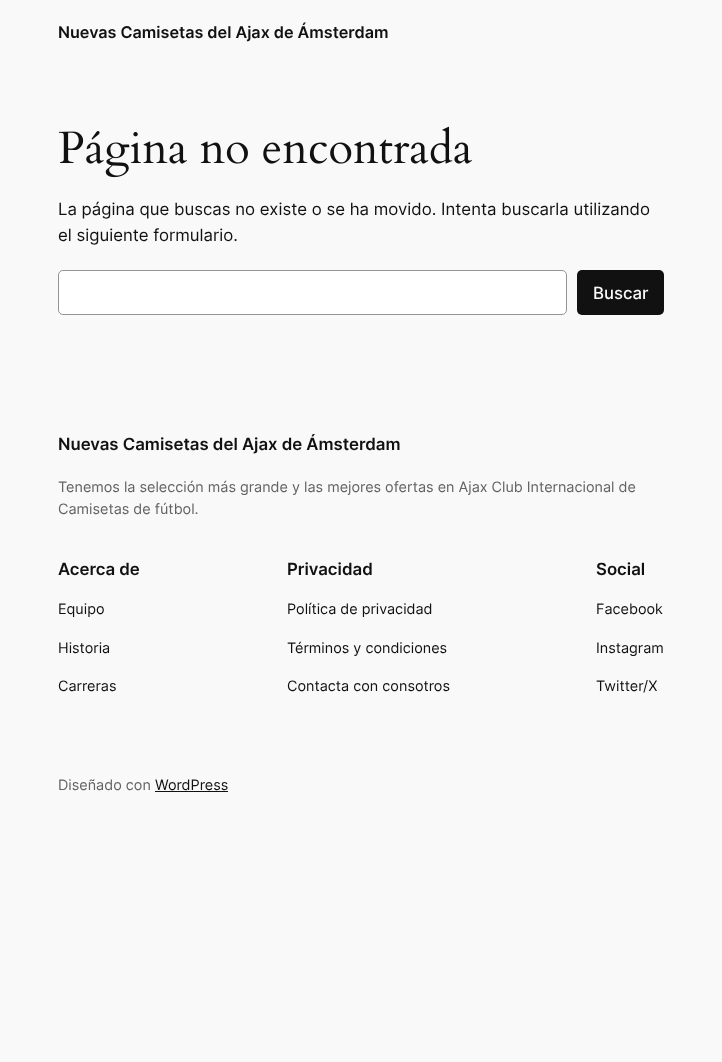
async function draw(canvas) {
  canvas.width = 722;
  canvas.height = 1062;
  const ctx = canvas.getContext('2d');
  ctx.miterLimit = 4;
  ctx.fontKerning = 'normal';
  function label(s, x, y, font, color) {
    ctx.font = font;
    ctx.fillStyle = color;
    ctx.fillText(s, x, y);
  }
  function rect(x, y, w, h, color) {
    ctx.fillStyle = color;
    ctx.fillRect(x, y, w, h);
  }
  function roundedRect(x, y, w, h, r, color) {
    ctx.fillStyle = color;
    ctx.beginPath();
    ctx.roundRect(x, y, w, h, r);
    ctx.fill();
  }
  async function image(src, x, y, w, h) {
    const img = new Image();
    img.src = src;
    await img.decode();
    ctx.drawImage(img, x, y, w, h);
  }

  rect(0, 0, 722, 1062, '#f9f9f9');
  label('Nuevas Camisetas del Ajax de Ámsterdam', 58, 38, '600 16.2px Inter', '#111');
  await image('assets/img1.png', 58, 126, 414, 52);
  label('La página que buscas no existe o se ha movido. Intenta buscarla utilizando', 58, 215, '16.8px Inter', '#111');
  label('el siguiente formulario.', 58, 241, '16.8px Inter', '#111');
  ctx.fillStyle = '#fff';
  ctx.beginPath();
  ctx.roundRect(58.5, 270.5, 508, 44, 4.5);
  ctx.fill();
  ctx.strokeStyle = '#949494';
  ctx.stroke();
  roundedRect(577, 270, 87, 45, 5, '#111');
  label('Buscar', 593, 299, '500 16.8px Inter', '#f9f9f9');
  label('Nuevas Camisetas del Ajax de Ámsterdam', 58, 450, '600 16.8px Inter', '#111');
  label('Tenemos la selección más grande y las mejores ofertas en Ajax Club Internacional de', 58, 492, '14.4px Inter', '#636363');
  label('Camisetas de fútbol.', 58, 514, '14.4px Inter', '#636363');
  label('Acerca de', 58, 575, '600 16.8px Inter', '#111');
  label('Equipo', 58, 614, '14.4px Inter', '#111');
  label('Historia', 58, 653, '14.4px Inter', '#111');
  label('Carreras', 58, 691, '14.4px Inter', '#111');
  label('Privacidad', 287, 575, '600 16.8px Inter', '#111');
  label('Política de privacidad', 287, 614, '14.4px Inter', '#111');
  label('Términos y condiciones', 287, 653, '14.4px Inter', '#111');
  label('Contacta con consotros', 287, 691, '14.4px Inter', '#111');
  label('Social', 596, 575, '600 16.8px Inter', '#111');
  label('Facebook', 596, 614, '14.4px Inter', '#111');
  label('Instagram', 596, 653, '14.4px Inter', '#111');
  label('Twitter/X', 596, 691, '14.4px Inter', '#111');
  label('Diseñado con', 58, 790, '14.4px Inter', '#636363');
  label('WordPress', 155, 790, '14.4px Inter', '#111');
  rect(155, 791, 73, 1, '#111');
}

draw(document.querySelector('canvas'));
